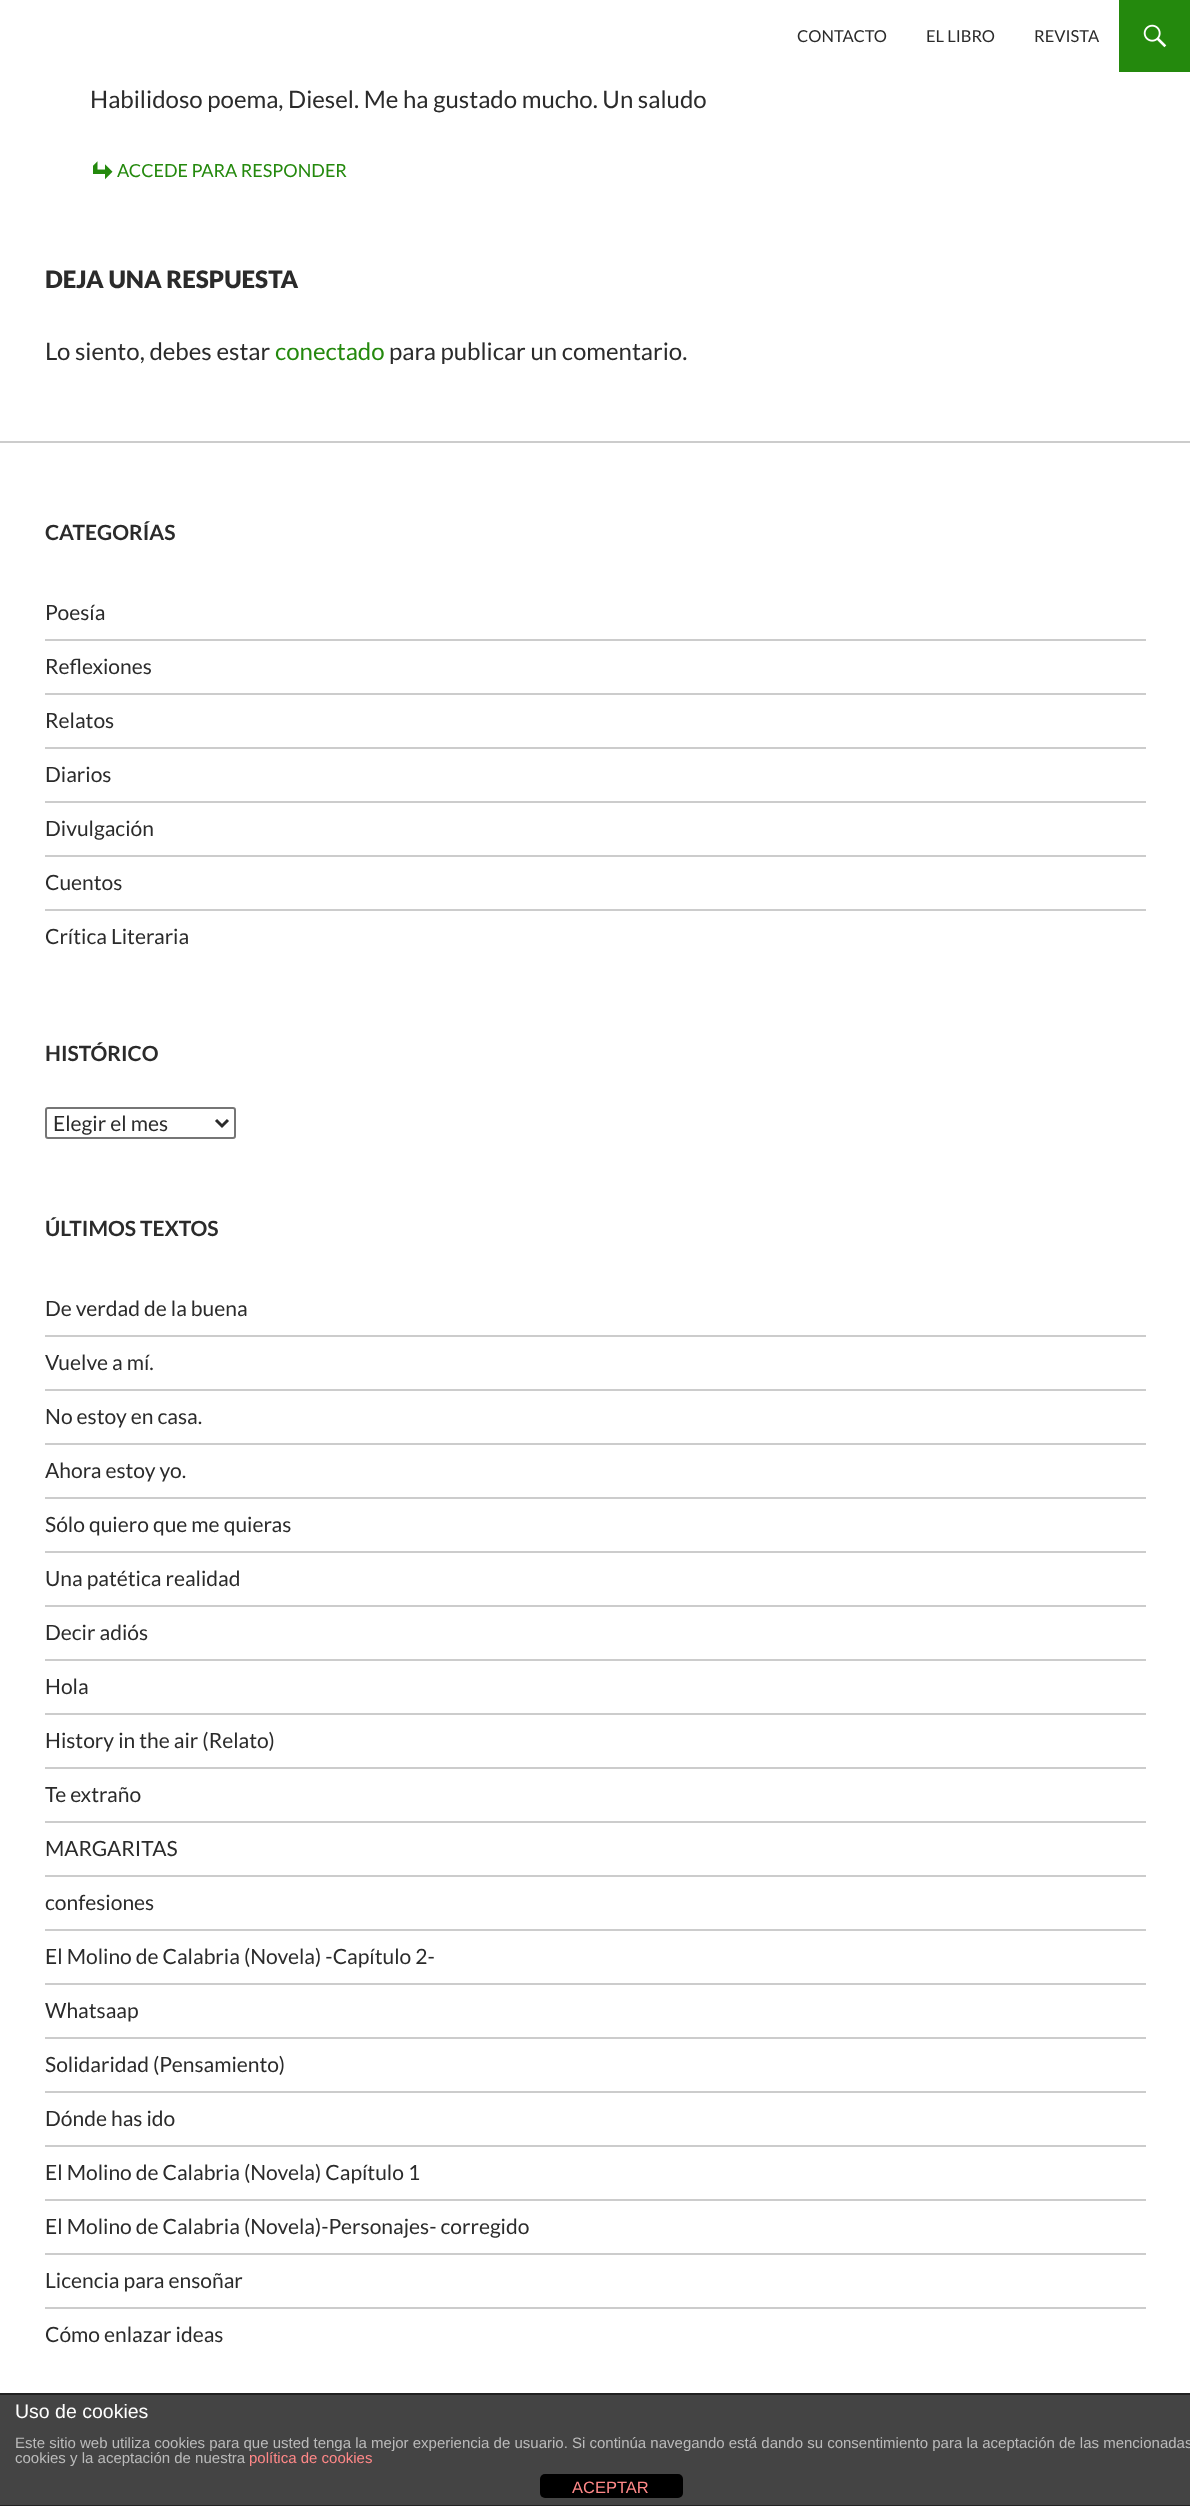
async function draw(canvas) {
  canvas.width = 1190;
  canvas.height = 2506;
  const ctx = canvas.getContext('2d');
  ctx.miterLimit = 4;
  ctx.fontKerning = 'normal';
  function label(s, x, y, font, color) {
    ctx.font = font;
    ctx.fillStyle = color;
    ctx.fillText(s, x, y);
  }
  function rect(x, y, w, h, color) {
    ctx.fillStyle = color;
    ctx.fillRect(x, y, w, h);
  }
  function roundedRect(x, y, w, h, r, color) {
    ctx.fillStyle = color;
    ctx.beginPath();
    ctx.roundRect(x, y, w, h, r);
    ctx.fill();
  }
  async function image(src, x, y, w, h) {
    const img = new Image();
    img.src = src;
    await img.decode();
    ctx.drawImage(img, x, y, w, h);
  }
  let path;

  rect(0, 0, 1190, 2506, '#fff');
  label('CONTACTO', 797, 42, '16.5px Lato', '#2b2b2b');
  label('EL LIBRO', 926, 42, '16.5px Lato', '#2b2b2b');
  label('REVISTA', 1034, 42, '16.5px Lato', '#2b2b2b');
  rect(1119, 0, 71, 72, '#24890d');
  await image('assets/img1.png', 1143, 24, 24, 24);
  label('Habilidoso poema, Diesel. Me ha gustado mucho. Un saludo', 90, 108, '24px Lato', '#2b2b2b');
  await image('assets/img2.png', 93, 161, 20, 19);
  label('ACCEDE PARA RESPONDER', 117, 177, '18px Lato', '#24890d');
  label('DEJA UNA RESPUESTA', 45, 288, '900 24px Lato', '#2b2b2b');
  label('Lo siento, debes estar', 45, 360, '24px Lato', '#2b2b2b');
  label('conectado', 275, 360, '24px Lato', '#24890d');
  label('para publicar un comentario.', 389, 360, '24px Lato', '#2b2b2b');
  rect(0, 441, 1190, 2, '#ccc');
  label('CATEGORÍAS', 45, 540, 'bold 21px Lato', '#2b2b2b');
  label('Poesía', 45, 620, '21px Lato', '#2b2b2b');
  rect(45, 639, 1101, 2, '#ccc');
  label('Reflexiones', 45, 674, '21px Lato', '#2b2b2b');
  rect(45, 693, 1101, 2, '#ccc');
  label('Relatos', 45, 728, '21px Lato', '#2b2b2b');
  rect(45, 747, 1101, 2, '#ccc');
  label('Diarios', 45, 782, '21px Lato', '#2b2b2b');
  rect(45, 801, 1101, 2, '#ccc');
  label('Divulgación', 45, 836, '21px Lato', '#2b2b2b');
  rect(45, 855, 1101, 2, '#ccc');
  label('Cuentos', 45, 890, '21px Lato', '#2b2b2b');
  rect(45, 909, 1101, 2, '#ccc');
  label('Crítica Literaria', 45, 944, '21px Lato', '#2b2b2b');
  label('HISTÓRICO', 45, 1061, 'bold 21px Lato', '#2b2b2b');
  ctx.beginPath();
  ctx.roundRect(46, 1108, 189, 30, 2);
  ctx.strokeStyle = '#767676';
  ctx.lineWidth = 2;
  ctx.stroke();
  path = new Path2D('M216 1120L222 1126L228 1120');
  ctx.strokeStyle = '#2b2b2b';
  ctx.lineWidth = 3;
  ctx.stroke(path);
  label('Elegir el mes', 53, 1131, '21px Lato', '#2b2b2b');
  label('ÚLTIMOS TEXTOS', 45, 1236, 'bold 21px Lato', '#2b2b2b');
  label('De verdad de la buena', 45, 1316, '21px Lato', '#2b2b2b');
  rect(45, 1335, 1101, 2, '#ccc');
  label('Vuelve a mí.', 45, 1370, '21px Lato', '#2b2b2b');
  rect(45, 1389, 1101, 2, '#ccc');
  label('No estoy en casa.', 45, 1424, '21px Lato', '#2b2b2b');
  rect(45, 1443, 1101, 2, '#ccc');
  label('Ahora estoy yo.', 45, 1478, '21px Lato', '#2b2b2b');
  rect(45, 1497, 1101, 2, '#ccc');
  label('Sólo quiero que me quieras', 45, 1532, '21px Lato', '#2b2b2b');
  rect(45, 1551, 1101, 2, '#ccc');
  label('Una patética realidad', 45, 1586, '21px Lato', '#2b2b2b');
  rect(45, 1605, 1101, 2, '#ccc');
  label('Decir adiós', 45, 1640, '21px Lato', '#2b2b2b');
  rect(45, 1659, 1101, 2, '#ccc');
  label('Hola', 45, 1694, '21px Lato', '#2b2b2b');
  rect(45, 1713, 1101, 2, '#ccc');
  label('History in the air (Relato)', 45, 1748, '21px Lato', '#2b2b2b');
  rect(45, 1767, 1101, 2, '#ccc');
  label('Te extraño', 45, 1802, '21px Lato', '#2b2b2b');
  rect(45, 1821, 1101, 2, '#ccc');
  label('MARGARITAS', 45, 1856, '21px Lato', '#2b2b2b');
  rect(45, 1875, 1101, 2, '#ccc');
  label('confesiones', 45, 1910, '21px Lato', '#2b2b2b');
  rect(45, 1929, 1101, 2, '#ccc');
  label('El Molino de Calabria (Novela) -Capítulo 2-', 45, 1964, '21px Lato', '#2b2b2b');
  rect(45, 1983, 1101, 2, '#ccc');
  label('Whatsaap', 45, 2018, '21px Lato', '#2b2b2b');
  rect(45, 2037, 1101, 2, '#ccc');
  label('Solidaridad (Pensamiento)', 45, 2072, '21px Lato', '#2b2b2b');
  rect(45, 2091, 1101, 2, '#ccc');
  label('Dónde has ido', 45, 2126, '21px Lato', '#2b2b2b');
  rect(45, 2145, 1101, 2, '#ccc');
  label('El Molino de Calabria (Novela) Capítulo 1', 45, 2180, '21px Lato', '#2b2b2b');
  rect(45, 2199, 1101, 2, '#ccc');
  label('El Molino de Calabria (Novela)-Personajes- corregido', 45, 2234, '21px Lato', '#2b2b2b');
  rect(45, 2253, 1101, 2, '#ccc');
  label('Licencia para ensoñar', 45, 2288, '21px Lato', '#2b2b2b');
  rect(45, 2307, 1101, 2, '#ccc');
  label('Cómo enlazar ideas', 45, 2342, '21px Lato', '#2b2b2b');
  rect(0, 2395, 1190, 110, '#444');
  rect(0, 2393, 1190, 2, '#222');
  rect(0, 2505, 1190, 1, '#222');
  label('Uso de cookies', 15, 2418, '19.5px Liberation Sans', '#fff');
  label('Este sitio web utiliza cookies para que usted tenga la mejor experiencia de usuario. Si continúa navegando está dando su consentimiento para la aceptación de las mencionadas', 15, 2448, '15px Liberation Sans', '#bbb');
  label('cookies y la aceptación de nuestra', 15, 2463, '15px Liberation Sans', '#bbb');
  label('política de cookies', 249, 2463, '15px Liberation Sans', '#f88');
  roundedRect(540, 2474, 143, 24, 5, '#000');
  label('ACEPTAR', 572, 2493, '16.5px Liberation Sans', '#f88');
}

draw(document.querySelector('canvas'));
